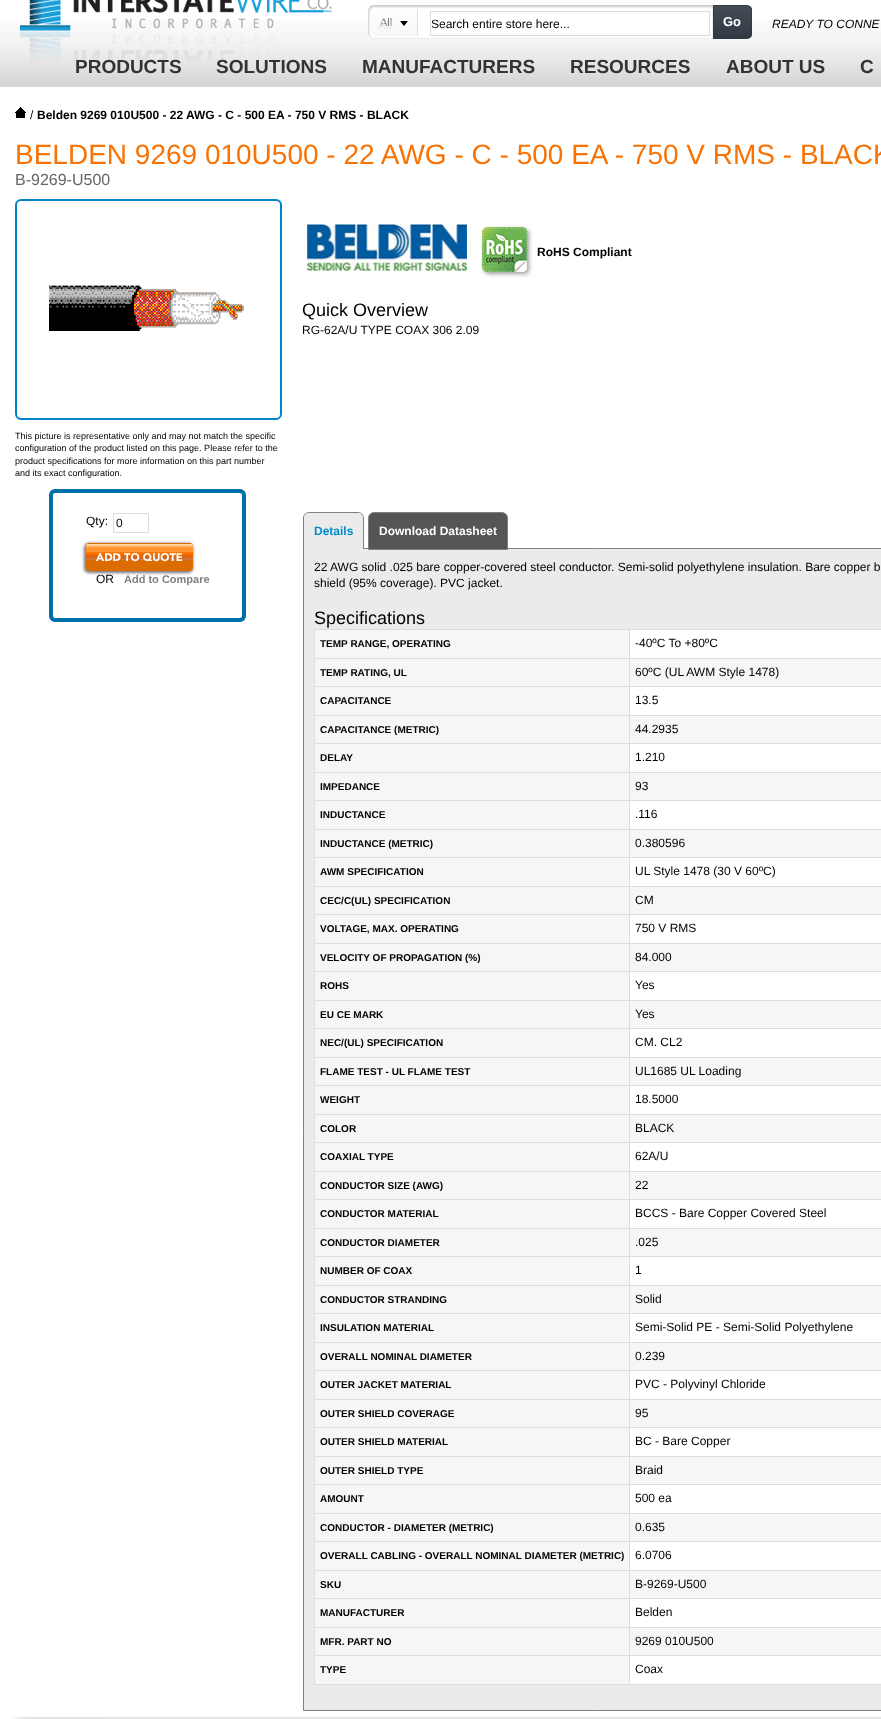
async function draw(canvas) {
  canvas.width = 881;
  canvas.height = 1719;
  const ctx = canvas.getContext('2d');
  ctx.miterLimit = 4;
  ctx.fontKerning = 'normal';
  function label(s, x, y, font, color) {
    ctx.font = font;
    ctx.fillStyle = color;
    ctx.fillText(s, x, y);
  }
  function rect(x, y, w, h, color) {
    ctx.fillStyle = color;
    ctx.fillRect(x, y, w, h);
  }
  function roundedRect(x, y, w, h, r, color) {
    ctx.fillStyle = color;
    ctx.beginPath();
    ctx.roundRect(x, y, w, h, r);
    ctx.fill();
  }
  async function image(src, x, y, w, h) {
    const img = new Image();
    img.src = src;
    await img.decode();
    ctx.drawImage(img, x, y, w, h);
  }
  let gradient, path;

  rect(0, 0, 881, 1719, '#fff');
  await image('assets/img3.png', 0, 20, 881, 67);
  await image('assets/img1.png', 368, 5, 340, 34);
  gradient = ctx.createLinearGradient(394, 9, 394, 36);
  gradient.addColorStop(0, '#fff');
  gradient.addColorStop(1, '#f7f7f7');
  ctx.fillStyle = gradient;
  ctx.beginPath();
  ctx.roundRect(370, 9, 48, 27, [5, 0, 0, 5]);
  ctx.fill();
  rect(417, 9, 1, 27, '#ddd');
  label('All', 380, 26, '11px Liberation Sans', '#777');
  label('All', 378, 29, '12px Liberation Sans', '#e5e5e5');
  ctx.fillStyle = '#000';
  path = new Path2D('M400 21H408L404 26Z');
  ctx.fill(path);
  await image('assets/img2.png', 708, 5, 5, 34);
  ctx.strokeStyle = '#ddd';
  ctx.strokeRect(430.5, 11.5, 279, 24);
  label('Search entire store here...', 431, 28, '12px Liberation Sans', '#000');
  ctx.save();
  ctx.beginPath();
  ctx.roundRect(713, 5, 39, 34, [0, 5, 5, 0]);
  ctx.clip();
  gradient = ctx.createLinearGradient(733, 6, 733, 38);
  gradient.addColorStop(0, '#444c55');
  gradient.addColorStop(1, '#313a44');
  ctx.fillStyle = gradient;
  ctx.fillRect(714, 6, 38, 32);
  ctx.restore();
  ctx.beginPath();
  ctx.roundRect(713.5, 5.5, 38, 33, [0, 4.5, 4.5, 0]);
  ctx.strokeStyle = '#313a44';
  ctx.stroke();
  label('Go', 723, 26, 'bold 13px Liberation Sans', '#fff');
  await image('assets/img4.png', 20, 0, 312, 62);
  label('READY TO CONNE', 772, 28, 'italic 12px Liberation Sans', '#000');
  label('PRODUCTS', 75, 73, 'bold 19px Liberation Sans', '#333');
  label('SOLUTIONS', 216, 73, 'bold 19px Liberation Sans', '#333');
  label('MANUFACTURERS', 362, 73, 'bold 19px Liberation Sans', '#333');
  label('RESOURCES', 570, 73, 'bold 19px Liberation Sans', '#333');
  label('ABOUT US', 726, 73, 'bold 19px Liberation Sans', '#333');
  label('C', 860, 73, 'bold 19px Liberation Sans', '#333');
  await image('assets/img5.png', 15, 107, 11, 11);
  label('/', 30, 119, '12px Liberation Sans', '#000');
  label('Belden 9269 010U500 - 22 AWG - C - 500 EA - 750 V RMS - BLACK', 37, 119, 'bold 12px Liberation Sans', '#000');
  await image('assets/img6.png', 13, 1717, 868, 2);
  label('BELDEN 9269 010U500 - 22 AWG - C - 500 EA - 750 V RMS - BLACK', 15, 164, '28px Liberation Sans', '#f87204');
  label('B-9269-U500', 15, 185, '16px Liberation Sans', '#666');
  await image('assets/img7.png', 307, 224, 160, 47);
  await image('assets/img8.png', 481, 224, 52, 54);
  label('RoHS Compliant', 537, 256, 'bold 12px Liberation Sans', '#000');
  label('Quick Overview', 302, 316, '18px Liberation Sans', '#000');
  label('RG-62A/U TYPE COAX 306 2.09', 302, 334, '12px Liberation Sans', '#000');
  ctx.beginPath();
  ctx.roundRect(16, 200, 265, 219, 5);
  ctx.strokeStyle = '#0085c9';
  ctx.lineWidth = 2;
  ctx.stroke();
  await image('assets/img9.png', 49, 285, 195, 46);
  label('This picture is representative only and may not match the specific', 15, 439, '9px Liberation Sans', '#000');
  label('configuration of the product listed on this page. Please refer to the', 15, 451, '9px Liberation Sans', '#000');
  label('product specifications for more information on this part number', 15, 464, '9px Liberation Sans', '#000');
  label('and its exact configuration.', 15, 476, '9px Liberation Sans', '#000');
  ctx.beginPath();
  ctx.roundRect(51, 491, 193, 129, 4);
  ctx.strokeStyle = '#0070aa';
  ctx.lineWidth = 4;
  ctx.stroke();
  label('Qty:', 86, 525, '12px Liberation Sans', '#000');
  ctx.strokeStyle = '#ddd';
  ctx.lineWidth = 1;
  ctx.strokeRect(113.5, 513.5, 35, 19);
  label('0', 116, 527, '12px Liberation Sans', '#000');
  ctx.fillStyle = '#777';
  ctx.filter = 'blur(1.5px)';
  ctx.beginPath();
  ctx.roundRect(84, 543, 109, 30, 5);
  ctx.fill();
  ctx.filter = 'none';
  roundedRect(86, 543, 107, 28, 4, '#dc6b00');
  await image('assets/img10.png', 86, 543, 107, 17);
  label('ADD TO QUOTE', 96, 561, '900 11px Avenir', '#fff');
  label('OR', 96, 583, '12px Liberation Sans', '#000');
  label('Add to Compare', 124, 583, 'bold 11px Liberation Sans', '#808080');
  ctx.fillStyle = '#ebebeb';
  ctx.beginPath();
  ctx.rect(303.5, 548.5, 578, 1162);
  ctx.fill();
  ctx.strokeStyle = '#808080';
  ctx.stroke();
  ctx.beginPath();
  ctx.roundRect(304, 513, 59, 36, [5, 5, 0, 0]);
  ctx.fill();
  ctx.fillStyle = '#808080';
  path = new Path2D('M309 512H358C361 512 364 515 364 518V549H303V518C303 515 306 512 309 512ZM309 513H358C361 513 363 515 363 518V549H304V518C304 515 306 513 309 513Z');
  ctx.fill(path, 'evenodd');
  label('Details', 314, 535, 'bold 12px Liberation Sans', '#008bd2');
  ctx.fillStyle = '#555';
  ctx.beginPath();
  ctx.roundRect(368.5, 512.5, 139, 37, [5.5, 5.5, 0, 0]);
  ctx.fill();
  ctx.stroke();
  label('Download Datasheet', 379, 535, 'bold 12px Liberation Sans', '#fff');
  label('22 AWG solid .025 bare copper-covered steel conductor. Semi-solid polyethylene insulation. Bare copper b', 314, 571, '12px Liberation Sans', '#000');
  label('shield (95% coverage). PVC jacket.', 314, 587, '12px Liberation Sans', '#000');
  label('Specifications', 314, 624, '18px Liberation Sans', '#000');
  rect(630, 630, 251, 1054, '#fff');
  rect(315, 630, 314, 28, '#f6f6f6');
  rect(629, 629, 252, 1, '#ddd');
  rect(629, 658, 252, 1, '#ddd');
  rect(315, 659, 566, 27, '#f6f6f6');
  rect(629, 686, 252, 1, '#ddd');
  rect(629, 715, 252, 1, '#ddd');
  rect(315, 716, 566, 27, '#f6f6f6');
  rect(629, 743, 252, 1, '#ddd');
  rect(629, 772, 252, 1, '#ddd');
  rect(315, 773, 566, 27, '#f6f6f6');
  rect(629, 800, 252, 1, '#ddd');
  rect(629, 829, 252, 1, '#ddd');
  rect(315, 830, 566, 27, '#f6f6f6');
  rect(629, 857, 252, 1, '#ddd');
  rect(629, 886, 252, 1, '#ddd');
  rect(315, 887, 566, 27, '#f6f6f6');
  rect(629, 914, 252, 1, '#ddd');
  rect(629, 943, 252, 1, '#ddd');
  rect(315, 944, 566, 27, '#f6f6f6');
  rect(629, 971, 252, 1, '#ddd');
  rect(629, 1000, 252, 1, '#ddd');
  rect(315, 1001, 566, 27, '#f6f6f6');
  rect(629, 1028, 252, 1, '#ddd');
  rect(629, 1057, 252, 1, '#ddd');
  rect(315, 1058, 566, 27, '#f6f6f6');
  rect(629, 1085, 252, 1, '#ddd');
  rect(629, 1114, 252, 1, '#ddd');
  rect(315, 1115, 566, 27, '#f6f6f6');
  rect(629, 1142, 252, 1, '#ddd');
  rect(629, 1171, 252, 1, '#ddd');
  rect(315, 1172, 566, 27, '#f6f6f6');
  rect(629, 1199, 252, 1, '#ddd');
  rect(629, 1228, 252, 1, '#ddd');
  rect(315, 1229, 566, 27, '#f6f6f6');
  rect(629, 1256, 252, 1, '#ddd');
  rect(629, 1285, 252, 1, '#ddd');
  rect(315, 1286, 566, 27, '#f6f6f6');
  rect(629, 1313, 252, 1, '#ddd');
  rect(629, 1342, 252, 1, '#ddd');
  rect(315, 1343, 566, 27, '#f6f6f6');
  rect(629, 1370, 252, 1, '#ddd');
  rect(629, 1399, 252, 1, '#ddd');
  rect(315, 1400, 566, 27, '#f6f6f6');
  rect(629, 1427, 252, 1, '#ddd');
  rect(629, 1456, 252, 1, '#ddd');
  rect(315, 1457, 566, 27, '#f6f6f6');
  rect(629, 1484, 252, 1, '#ddd');
  rect(629, 1513, 252, 1, '#ddd');
  rect(315, 1514, 566, 27, '#f6f6f6');
  rect(629, 1541, 252, 1, '#ddd');
  rect(629, 1570, 252, 1, '#ddd');
  rect(315, 1571, 566, 27, '#f6f6f6');
  rect(629, 1598, 252, 1, '#ddd');
  rect(629, 1627, 252, 1, '#ddd');
  rect(315, 1628, 566, 27, '#f6f6f6');
  rect(629, 1655, 252, 1, '#ddd');
  rect(629, 1684, 252, 1, '#ddd');
  rect(629, 1655, 1, 30, '#ddd');
  rect(314, 1655, 316, 1, '#ddd');
  rect(629, 1627, 1, 29, '#ddd');
  rect(314, 1627, 316, 1, '#ddd');
  rect(629, 1598, 1, 30, '#ddd');
  rect(314, 1598, 316, 1, '#ddd');
  rect(629, 1570, 1, 29, '#ddd');
  rect(314, 1570, 316, 1, '#ddd');
  rect(629, 1541, 1, 30, '#ddd');
  rect(314, 1541, 316, 1, '#ddd');
  rect(629, 1513, 1, 29, '#ddd');
  rect(314, 1513, 316, 1, '#ddd');
  rect(629, 1484, 1, 30, '#ddd');
  rect(314, 1484, 316, 1, '#ddd');
  rect(629, 1456, 1, 29, '#ddd');
  rect(314, 1456, 316, 1, '#ddd');
  rect(629, 1427, 1, 30, '#ddd');
  rect(314, 1427, 316, 1, '#ddd');
  rect(629, 1399, 1, 29, '#ddd');
  rect(314, 1399, 316, 1, '#ddd');
  rect(629, 1370, 1, 30, '#ddd');
  rect(314, 1370, 316, 1, '#ddd');
  rect(629, 1342, 1, 29, '#ddd');
  rect(314, 1342, 316, 1, '#ddd');
  rect(629, 1313, 1, 30, '#ddd');
  rect(314, 1313, 316, 1, '#ddd');
  rect(629, 1285, 1, 29, '#ddd');
  rect(314, 1285, 316, 1, '#ddd');
  rect(629, 1256, 1, 30, '#ddd');
  rect(314, 1256, 316, 1, '#ddd');
  rect(629, 1228, 1, 29, '#ddd');
  rect(314, 1228, 316, 1, '#ddd');
  rect(629, 1199, 1, 30, '#ddd');
  rect(314, 1199, 316, 1, '#ddd');
  rect(629, 1171, 1, 29, '#ddd');
  rect(314, 1171, 316, 1, '#ddd');
  rect(629, 1142, 1, 30, '#ddd');
  rect(314, 1142, 316, 1, '#ddd');
  rect(629, 1114, 1, 29, '#ddd');
  rect(314, 1114, 316, 1, '#ddd');
  rect(629, 1085, 1, 30, '#ddd');
  rect(314, 1085, 316, 1, '#ddd');
  rect(629, 1057, 1, 29, '#ddd');
  rect(314, 1057, 316, 1, '#ddd');
  rect(629, 1028, 1, 30, '#ddd');
  rect(314, 1028, 316, 1, '#ddd');
  rect(629, 1000, 1, 29, '#ddd');
  rect(314, 1000, 316, 1, '#ddd');
  rect(629, 971, 1, 30, '#ddd');
  rect(314, 971, 316, 1, '#ddd');
  rect(629, 943, 1, 29, '#ddd');
  rect(314, 943, 316, 1, '#ddd');
  rect(629, 914, 1, 30, '#ddd');
  rect(314, 914, 316, 1, '#ddd');
  rect(629, 886, 1, 29, '#ddd');
  rect(314, 886, 316, 1, '#ddd');
  rect(629, 857, 1, 30, '#ddd');
  rect(314, 857, 316, 1, '#ddd');
  rect(629, 829, 1, 29, '#ddd');
  rect(314, 829, 316, 1, '#ddd');
  rect(629, 800, 1, 30, '#ddd');
  rect(314, 800, 316, 1, '#ddd');
  rect(629, 772, 1, 29, '#ddd');
  rect(314, 772, 316, 1, '#ddd');
  rect(629, 743, 1, 30, '#ddd');
  rect(314, 743, 316, 1, '#ddd');
  rect(629, 715, 1, 29, '#ddd');
  rect(314, 715, 316, 1, '#ddd');
  rect(629, 686, 1, 30, '#ddd');
  rect(314, 686, 316, 1, '#ddd');
  rect(629, 658, 1, 29, '#ddd');
  rect(314, 658, 316, 1, '#ddd');
  rect(629, 629, 1, 30, '#ddd');
  rect(314, 629, 316, 1, '#ddd');
  rect(314, 1684, 316, 1, '#ddd');
  rect(314, 1655, 1, 30, '#ddd');
  rect(314, 1627, 1, 29, '#ddd');
  rect(314, 1598, 1, 30, '#ddd');
  rect(314, 1570, 1, 29, '#ddd');
  rect(314, 1541, 1, 30, '#ddd');
  rect(314, 1513, 1, 29, '#ddd');
  rect(314, 1484, 1, 30, '#ddd');
  rect(314, 1456, 1, 29, '#ddd');
  rect(314, 1427, 1, 30, '#ddd');
  rect(314, 1399, 1, 29, '#ddd');
  rect(314, 1370, 1, 30, '#ddd');
  rect(314, 1342, 1, 29, '#ddd');
  rect(314, 1313, 1, 30, '#ddd');
  rect(314, 1285, 1, 29, '#ddd');
  rect(314, 1256, 1, 30, '#ddd');
  rect(314, 1228, 1, 29, '#ddd');
  rect(314, 1199, 1, 30, '#ddd');
  rect(314, 1171, 1, 29, '#ddd');
  rect(314, 1142, 1, 30, '#ddd');
  rect(314, 1114, 1, 29, '#ddd');
  rect(314, 1085, 1, 30, '#ddd');
  rect(314, 1057, 1, 29, '#ddd');
  rect(314, 1028, 1, 30, '#ddd');
  rect(314, 1000, 1, 29, '#ddd');
  rect(314, 971, 1, 30, '#ddd');
  rect(314, 943, 1, 29, '#ddd');
  rect(314, 914, 1, 30, '#ddd');
  rect(314, 886, 1, 29, '#ddd');
  rect(314, 857, 1, 30, '#ddd');
  rect(314, 829, 1, 29, '#ddd');
  rect(314, 800, 1, 30, '#ddd');
  rect(314, 772, 1, 29, '#ddd');
  rect(314, 743, 1, 30, '#ddd');
  rect(314, 715, 1, 29, '#ddd');
  rect(314, 686, 1, 30, '#ddd');
  rect(314, 658, 1, 29, '#ddd');
  rect(314, 629, 1, 30, '#ddd');
  label('TEMP RANGE, OPERATING', 320, 647, 'bold 10px Liberation Sans', '#000');
  label('-40ºC To +80ºC', 635, 647, '12px Liberation Sans', '#000');
  label('TEMP RATING, UL', 320, 676, 'bold 10px Liberation Sans', '#000');
  label('60ºC (UL AWM Style 1478)', 635, 676, '12px Liberation Sans', '#000');
  rect(315, 687, 314, 28, '#f6f6f6');
  label('CAPACITANCE', 320, 704, 'bold 10px Liberation Sans', '#000');
  label('13.5', 635, 704, '12px Liberation Sans', '#000');
  label('CAPACITANCE (METRIC)', 320, 733, 'bold 10px Liberation Sans', '#000');
  label('44.2935', 635, 733, '12px Liberation Sans', '#000');
  rect(315, 744, 314, 28, '#f6f6f6');
  label('DELAY', 320, 761, 'bold 10px Liberation Sans', '#000');
  label('1.210', 635, 761, '12px Liberation Sans', '#000');
  label('IMPEDANCE', 320, 790, 'bold 10px Liberation Sans', '#000');
  label('93', 635, 790, '12px Liberation Sans', '#000');
  rect(315, 801, 314, 28, '#f6f6f6');
  label('INDUCTANCE', 320, 818, 'bold 10px Liberation Sans', '#000');
  label('.116', 635, 818, '12px Liberation Sans', '#000');
  label('INDUCTANCE (METRIC)', 320, 847, 'bold 10px Liberation Sans', '#000');
  label('0.380596', 635, 847, '12px Liberation Sans', '#000');
  rect(315, 858, 314, 28, '#f6f6f6');
  label('AWM SPECIFICATION', 320, 875, 'bold 10px Liberation Sans', '#000');
  label('UL Style 1478 (30 V 60ºC)', 635, 875, '12px Liberation Sans', '#000');
  label('CEC/C(UL) SPECIFICATION', 320, 904, 'bold 10px Liberation Sans', '#000');
  label('CM', 635, 904, '12px Liberation Sans', '#000');
  rect(315, 915, 314, 28, '#f6f6f6');
  label('VOLTAGE, MAX. OPERATING', 320, 932, 'bold 10px Liberation Sans', '#000');
  label('750 V RMS', 635, 932, '12px Liberation Sans', '#000');
  label('VELOCITY OF PROPAGATION (%)', 320, 961, 'bold 10px Liberation Sans', '#000');
  label('84.000', 635, 961, '12px Liberation Sans', '#000');
  rect(315, 972, 314, 28, '#f6f6f6');
  label('ROHS', 320, 989, 'bold 10px Liberation Sans', '#000');
  label('Yes', 635, 989, '12px Liberation Sans', '#000');
  label('EU CE MARK', 320, 1018, 'bold 10px Liberation Sans', '#000');
  label('Yes', 635, 1018, '12px Liberation Sans', '#000');
  rect(315, 1029, 314, 28, '#f6f6f6');
  label('NEC/(UL) SPECIFICATION', 320, 1046, 'bold 10px Liberation Sans', '#000');
  label('CM. CL2', 635, 1046, '12px Liberation Sans', '#000');
  label('FLAME TEST - UL FLAME TEST', 320, 1075, 'bold 10px Liberation Sans', '#000');
  label('UL1685 UL Loading', 635, 1075, '12px Liberation Sans', '#000');
  rect(315, 1086, 314, 28, '#f6f6f6');
  label('WEIGHT', 320, 1103, 'bold 10px Liberation Sans', '#000');
  label('18.5000', 635, 1103, '12px Liberation Sans', '#000');
  label('COLOR', 320, 1132, 'bold 10px Liberation Sans', '#000');
  label('BLACK', 635, 1132, '12px Liberation Sans', '#000');
  rect(315, 1143, 314, 28, '#f6f6f6');
  label('COAXIAL TYPE', 320, 1160, 'bold 10px Liberation Sans', '#000');
  label('62A/U', 635, 1160, '12px Liberation Sans', '#000');
  label('CONDUCTOR SIZE (AWG)', 320, 1189, 'bold 10px Liberation Sans', '#000');
  label('22', 635, 1189, '12px Liberation Sans', '#000');
  rect(315, 1200, 314, 28, '#f6f6f6');
  label('CONDUCTOR MATERIAL', 320, 1217, 'bold 10px Liberation Sans', '#000');
  label('BCCS - Bare Copper Covered Steel', 635, 1217, '12px Liberation Sans', '#000');
  label('CONDUCTOR DIAMETER', 320, 1246, 'bold 10px Liberation Sans', '#000');
  label('.025', 635, 1246, '12px Liberation Sans', '#000');
  rect(315, 1257, 314, 28, '#f6f6f6');
  label('NUMBER OF COAX', 320, 1274, 'bold 10px Liberation Sans', '#000');
  label('1', 635, 1274, '12px Liberation Sans', '#000');
  label('CONDUCTOR STRANDING', 320, 1303, 'bold 10px Liberation Sans', '#000');
  label('Solid', 635, 1303, '12px Liberation Sans', '#000');
  rect(315, 1314, 314, 28, '#f6f6f6');
  label('INSULATION MATERIAL', 320, 1331, 'bold 10px Liberation Sans', '#000');
  label('Semi-Solid PE - Semi-Solid Polyethylene', 635, 1331, '12px Liberation Sans', '#000');
  label('OVERALL NOMINAL DIAMETER', 320, 1360, 'bold 10px Liberation Sans', '#000');
  label('0.239', 635, 1360, '12px Liberation Sans', '#000');
  rect(315, 1371, 314, 28, '#f6f6f6');
  label('OUTER JACKET MATERIAL', 320, 1388, 'bold 10px Liberation Sans', '#000');
  label('PVC - Polyvinyl Chloride', 635, 1388, '12px Liberation Sans', '#000');
  label('OUTER SHIELD COVERAGE', 320, 1417, 'bold 10px Liberation Sans', '#000');
  label('95', 635, 1417, '12px Liberation Sans', '#000');
  rect(315, 1428, 314, 28, '#f6f6f6');
  label('OUTER SHIELD MATERIAL', 320, 1445, 'bold 10px Liberation Sans', '#000');
  label('BC - Bare Copper', 635, 1445, '12px Liberation Sans', '#000');
  label('OUTER SHIELD TYPE', 320, 1474, 'bold 10px Liberation Sans', '#000');
  label('Braid', 635, 1474, '12px Liberation Sans', '#000');
  rect(315, 1485, 314, 28, '#f6f6f6');
  label('AMOUNT', 320, 1502, 'bold 10px Liberation Sans', '#000');
  label('500 ea', 635, 1502, '12px Liberation Sans', '#000');
  label('CONDUCTOR - DIAMETER (METRIC)', 320, 1531, 'bold 10px Liberation Sans', '#000');
  label('0.635', 635, 1531, '12px Liberation Sans', '#000');
  rect(315, 1542, 314, 28, '#f6f6f6');
  label('OVERALL CABLING - OVERALL NOMINAL DIAMETER (METRIC)', 320, 1559, 'bold 10px Liberation Sans', '#000');
  label('6.0706', 635, 1559, '12px Liberation Sans', '#000');
  label('SKU', 320, 1588, 'bold 10px Liberation Sans', '#000');
  label('B-9269-U500', 635, 1588, '12px Liberation Sans', '#000');
  rect(315, 1599, 314, 28, '#f6f6f6');
  label('MANUFACTURER', 320, 1616, 'bold 10px Liberation Sans', '#000');
  label('Belden', 635, 1616, '12px Liberation Sans', '#000');
  label('MFR. PART NO', 320, 1645, 'bold 10px Liberation Sans', '#000');
  label('9269 010U500', 635, 1645, '12px Liberation Sans', '#000');
  rect(315, 1656, 314, 28, '#f6f6f6');
  label('TYPE', 320, 1673, 'bold 10px Liberation Sans', '#000');
  label('Coax', 635, 1673, '12px Liberation Sans', '#000');
}

draw(document.querySelector('canvas'));
